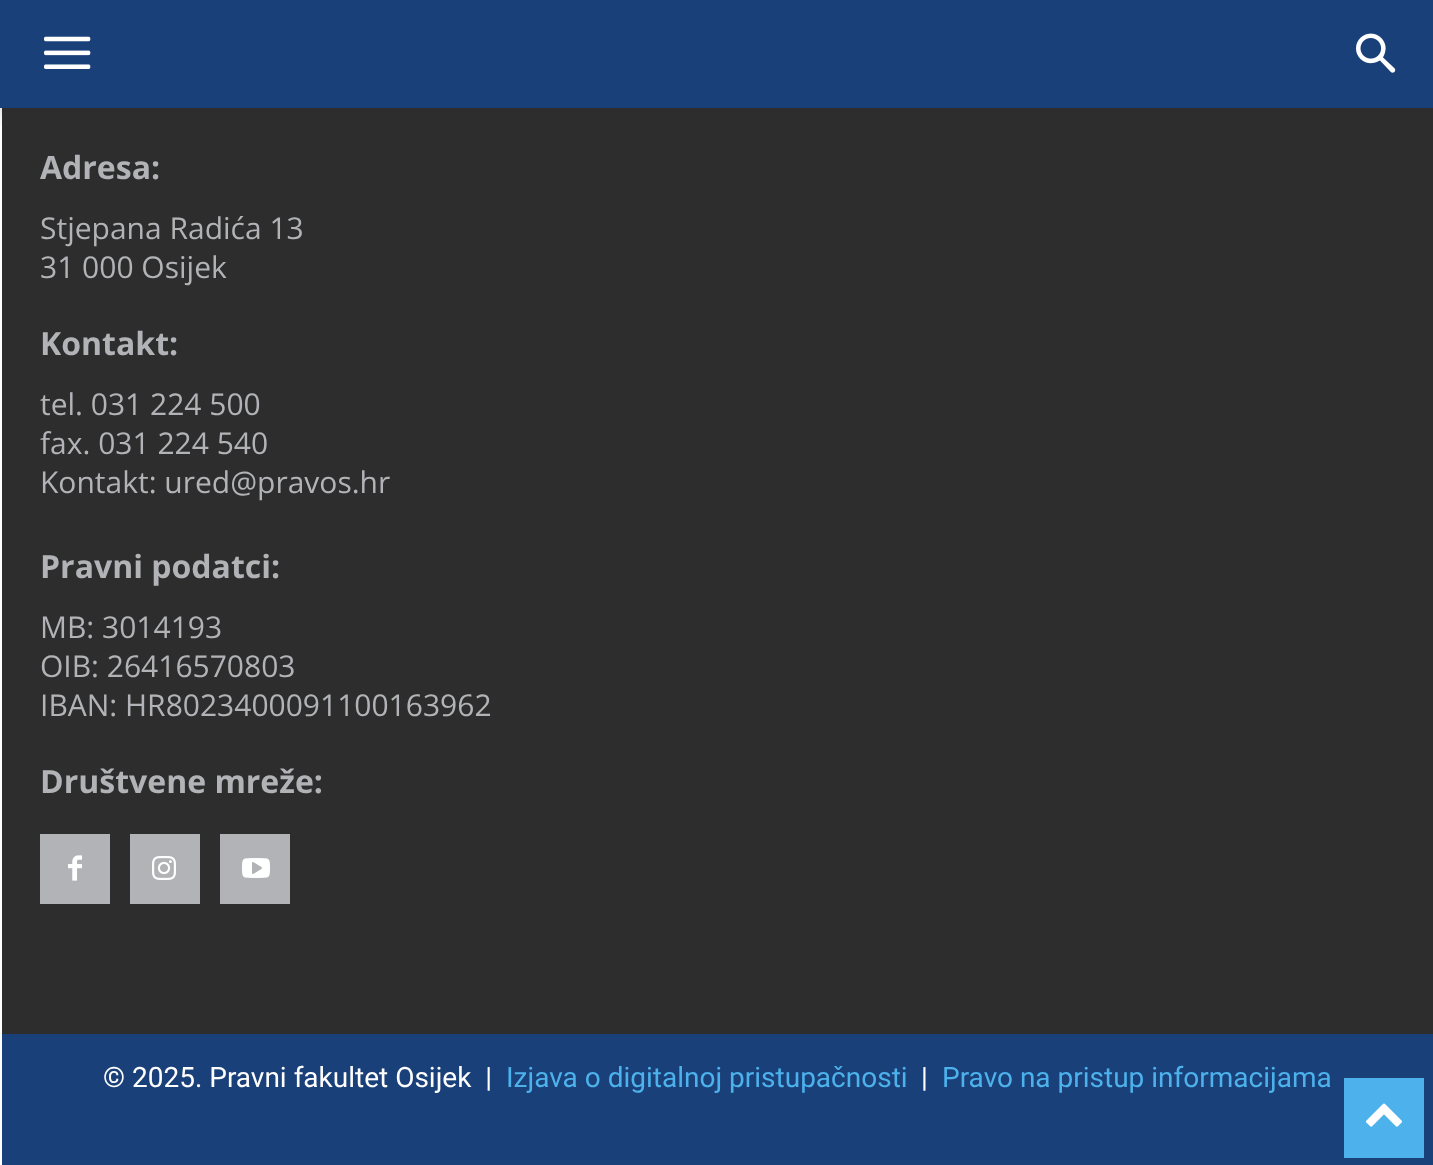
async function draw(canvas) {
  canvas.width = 1433;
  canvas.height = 1165;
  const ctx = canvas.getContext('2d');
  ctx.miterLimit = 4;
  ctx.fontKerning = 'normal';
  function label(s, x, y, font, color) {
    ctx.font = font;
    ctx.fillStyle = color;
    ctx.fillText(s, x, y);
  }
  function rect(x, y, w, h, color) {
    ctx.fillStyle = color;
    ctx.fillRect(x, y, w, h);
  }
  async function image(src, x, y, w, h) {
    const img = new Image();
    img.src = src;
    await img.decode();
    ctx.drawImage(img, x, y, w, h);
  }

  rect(0, 0, 1433, 1165, '#fff');
  rect(0, 0, 1433, 108, '#1a4079');
  await image('assets/img1.png', 44, 36, 47, 33);
  await image('assets/img2.png', 1356, 33, 40, 40);
  await image('assets/img3.png', 0, 108, 2, 17);
  rect(2, 108, 1431, 926, '#2d2d2d');
  label('Adresa:', 40, 179, 'bold 32px Open Sans', '#b2b3b6');
  label('Stjepana Radića 13', 40, 239, '30px Open Sans', '#b2b3b6');
  label('31 000 Osijek', 40, 278, '30px Open Sans', '#b2b3b6');
  label('Kontakt:', 40, 355, 'bold 32px Open Sans', '#b2b3b6');
  label('tel. 031 224 500', 40, 415, '30px Open Sans', '#b2b3b6');
  label('fax. 031 224 540', 40, 454, '30px Open Sans', '#b2b3b6');
  label('Kontakt: ured@pravos.hr', 40, 493, '30px Open Sans', '#b2b3b6');
  label('Pravni podatci:', 40, 578, 'bold 32px Open Sans', '#b2b3b6');
  label('MB: 3014193', 40, 638, '30px Open Sans', '#b2b3b6');
  label('OIB: 26416570803', 40, 677, '30px Open Sans', '#b2b3b6');
  label('IBAN: HR8023400091100163962', 40, 716, '30px Open Sans', '#b2b3b6');
  label('Društvene mreže:', 40, 793, 'bold 32px Open Sans', '#b2b3b6');
  rect(40, 834, 70, 70, '#b2b3b6');
  await image('assets/img4.png', 68, 855, 14, 26);
  rect(130, 834, 70, 70, '#b2b3b6');
  await image('assets/img5.png', 152, 856, 24, 24);
  rect(220, 834, 70, 70, '#b2b3b6');
  await image('assets/img6.png', 242, 858, 28, 20);
  rect(2, 1034, 1431, 131, '#1a4079');
  label('© 2025. Pravni fakultet Osijek  |', 103, 1087, '28px Roboto', '#fff');
  label('Izjava o digitalnoj pristupačnosti', 506, 1087, '28px Roboto', '#4db2ec');
  label('|', 921, 1087, '28px Roboto', '#fff');
  label('Pravo na pristup informacijama', 942, 1087, '28px Roboto', '#4db2ec');
  rect(1344, 1078, 80, 80, '#4db2ec');
  await image('assets/img7.png', 1366, 1103, 36, 24);
}

draw(document.querySelector('canvas'));
